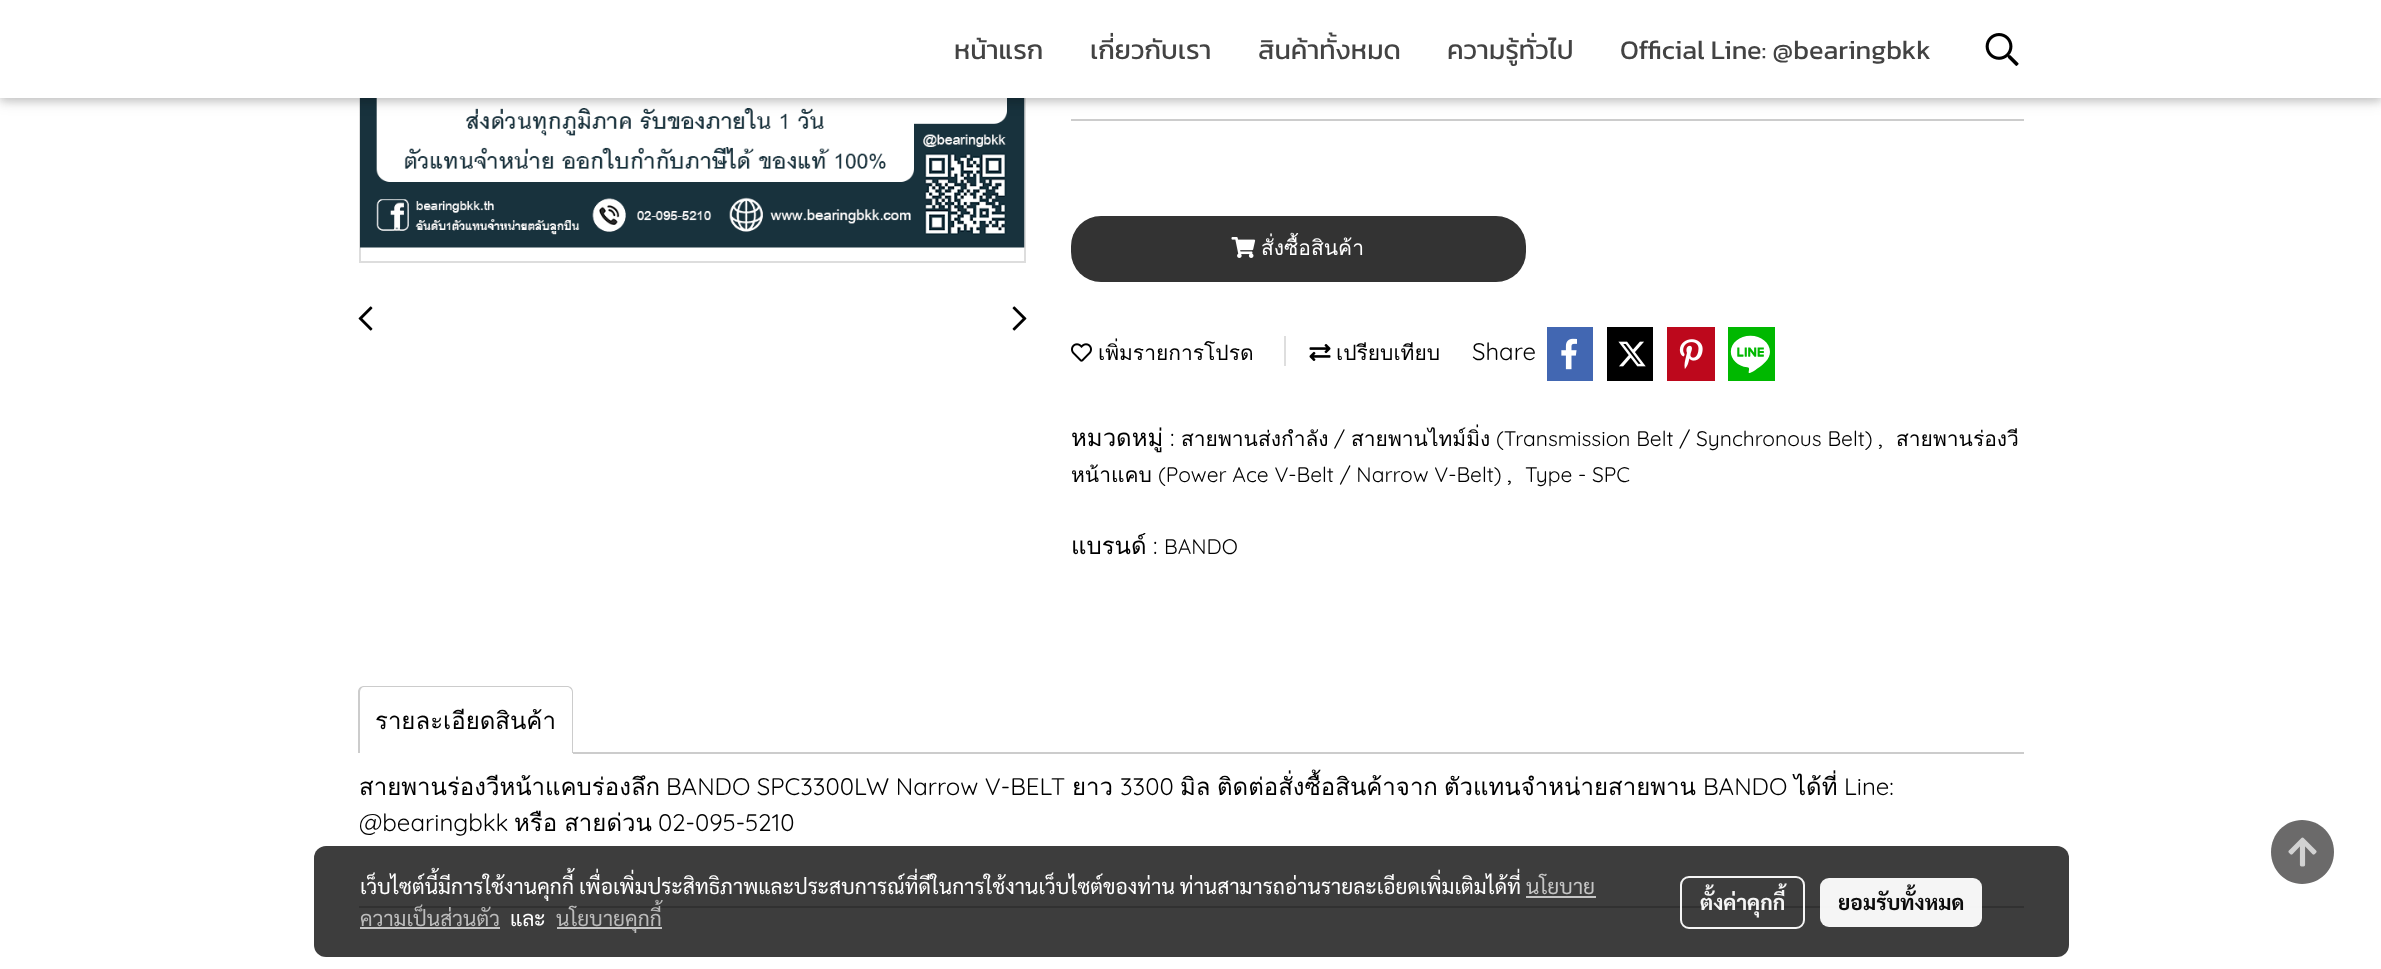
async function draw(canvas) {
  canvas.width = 2381;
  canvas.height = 969;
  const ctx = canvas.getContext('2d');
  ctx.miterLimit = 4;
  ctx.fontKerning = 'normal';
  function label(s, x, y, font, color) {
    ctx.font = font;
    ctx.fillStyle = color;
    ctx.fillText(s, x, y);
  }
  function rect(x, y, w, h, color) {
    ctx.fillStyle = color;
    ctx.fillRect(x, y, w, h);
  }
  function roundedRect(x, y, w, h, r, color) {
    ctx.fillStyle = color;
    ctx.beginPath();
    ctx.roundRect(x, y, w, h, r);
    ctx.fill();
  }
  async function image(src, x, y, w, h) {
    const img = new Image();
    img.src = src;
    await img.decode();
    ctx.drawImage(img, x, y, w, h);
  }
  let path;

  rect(0, 0, 2381, 969, '#fff');
  ctx.strokeStyle = '#ddd';
  ctx.lineWidth = 2;
  ctx.strokeRect(360, -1, 665, 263);
  await image('assets/img2.png', 360, 98, 665, 150);
  rect(1071, 119, 953, 2, '#ccc');
  ctx.fillStyle = '#0000001f';
  ctx.filter = 'blur(7.5px)';
  ctx.beginPath();
  ctx.rect(0, 3, 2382, 98);
  ctx.fill();
  ctx.filter = 'none';
  ctx.fillStyle = '#00000029';
  ctx.filter = 'blur(4px)';
  ctx.beginPath();
  ctx.rect(0, 3, 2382, 98);
  ctx.fill();
  ctx.filter = 'none';
  rect(0, 0, 2381, 98, '#fff');
  label('หน้าแรก', 954, 59, '27px Kanit', '#434343');
  label('เกี่ยวกับเรา', 1090, 59, '27px Kanit', '#434343');
  label('สินค้าทั้งหมด', 1258, 59, '27px Kanit', '#434343');
  label('ความรู้ทั่วไป', 1447, 59, '27px Kanit', '#434343');
  label('Official Line: @bearingbkk', 1620, 59, '27px Kanit', '#434343');
  await image('assets/img1.png', 1985, 33, 34, 33);
  await image('assets/img3.png', 358, 306, 15, 25);
  await image('assets/img4.png', 1012, 306, 15, 25);
  roundedRect(1071, 216, 455, 66, 30, '#333');
  label('สั่งซื้อสินค้า', 1261, 255, '21px Loma', '#fff');
  await image('assets/img5.png', 1231, 237, 25, 21);
  await image('assets/img6.png', 1071, 343, 21, 19);
  label('เพิ่มรายการโปรด', 1098, 360, '21px Loma', '#000');
  rect(1284, 336, 2, 30, '#dedede');
  await image('assets/img7.png', 1309, 344, 22, 17);
  label('เปรียบเทียบ', 1336, 360, '21px Loma', '#000');
  label('Share', 1472, 360, '300 24px Quicksand', '#000');
  rect(1547, 327, 46, 54, '#4267b2');
  await image('assets/img8.png', 1561, 338, 16, 32);
  rect(1607, 327, 46, 54, '#000');
  await image('assets/img9.png', 1618, 341, 28, 26);
  rect(1667, 327, 48, 54, '#bd081c');
  await image('assets/img10.png', 1679, 339, 24, 30);
  rect(1728, 327, 47, 54, '#00b800');
  await image('assets/img11.png', 1730, 335, 40, 38);
  label('หมวดหมู่', 1071, 446, '24px Loma', '#000');
  label(':', 1170, 446, '300 24px Quicksand', '#000');
  label('สายพานส่งกำลัง', 1181, 446, '21px Loma', '#000');
  label('/', 1334, 446, '300 21px Quicksand', '#000');
  label('สายพานไทม์มิ่ง', 1351, 446, '21px Loma', '#000');
  label('(Transmission Belt / Synchronous Belt)', 1496, 446, '300 21px Quicksand', '#000');
  label('สายพานร่องวี', 1896, 446, '21px Loma', '#000');
  label(',', 1878, 446, '300 24px Quicksand', '#000');
  label('หน้าแคบ', 1071, 482, '21px Loma', '#000');
  label('(Power Ace V-Belt / Narrow V-Belt)', 1158, 482, '300 21px Quicksand', '#000');
  label(',', 1507, 482, '300 24px Quicksand', '#000');
  label('Type - SPC', 1525, 482, '300 21px Quicksand', '#000');
  label('แบรนด์', 1071, 554, '24px Loma', '#000');
  label(':', 1153, 554, '300 24px Quicksand', '#000');
  label('BANDO', 1164, 554, '300 21px Quicksand', '#000');
  ctx.fillStyle = '#ccc';
  path = new Path2D('M364 686H567C570 686 573 688 573 692V753H358V692C358 688 361 686 364 686ZM364 687H567C569 687 572 689 572 692V753H360V692C360 689 362 687 364 687Z');
  ctx.fill(path, 'evenodd');
  label('รายละเอียดสินค้า', 375, 729, '24px Loma', '#000');
  rect(573, 752, 1451, 2, '#ccc');
  label('สายพานร่องวีหน้าแคบร่องลึก', 359, 795, '24px Loma', '#000');
  label('BANDO SPC3300LW Narrow V-BELT', 666, 795, '300 24px Quicksand', '#000');
  label('ยาว', 1072, 795, '24px Loma', '#000');
  label('3300', 1120, 795, '300 24px Quicksand', '#000');
  label('มิล', 1180, 795, '24px Loma', '#000');
  label('ติดต่อสั่งซื้อสินค้าจาก', 1217, 795, '24px Loma', '#000');
  label('ตัวแทนจำหน่ายสายพาน', 1444, 795, '24px Loma', '#000');
  label('BANDO', 1703, 795, '300 24px Quicksand', '#000');
  label('ได้ที่', 1794, 795, '24px Loma', '#000');
  label('Line:', 1844, 795, '300 24px Quicksand', '#000');
  label('@bearingbkk', 359, 831, '300 24px Quicksand', '#000');
  ctx.wordSpacing = '-1px';
  label('หรือ สายด่วน', 514, 831, '24px Loma', '#000');
  ctx.wordSpacing = '0px';
  label('02-095-5210', 658, 831, '300 24px Quicksand', '#000');
  rect(359, 906, 1665, 2, '#ccc');
  ctx.fillStyle = '#6b6a6a';
  path = new Path2D('M2302 820C2285 820 2271 834 2271 852C2271 870 2285 884 2302 884C2320 884 2334 870 2334 852C2334 834 2320 820 2302 820Z');
  ctx.fill(path);
  await image('assets/img12.png', 2288, 837, 29, 30);
  roundedRect(314, 846, 1755, 111, 12, '#000000c2');
  label('เว็บไซต์นี้มีการใช้งานคุกกี้ เพื่อเพิ่มประสิทธิภาพและประสบการณ์ที่ดีในการใช้งานเว็บไซต์ของท่าน ท่านสามารถอ่านรายละเอียดเพิ่มเติมได้ที่', 360, 894, '21px Sarabun', '#fff');
  label('นโยบาย', 1526, 894, '21px Sarabun', '#c5c5c5');
  rect(1526, 896, 70, 2, '#c5c5c5');
  label('ความเป็นส่วนตัว', 360, 926, '21px Sarabun', '#bbb');
  rect(360, 927, 140, 2, '#c5c5c5');
  label('และ', 510, 926, '21px Sarabun', '#fff');
  rect(557, 927, 105, 2, '#c5c5c5');
  label('นโยบายคุกกี้', 556, 926, '21px Sarabun', '#bbb');
  ctx.beginPath();
  ctx.roundRect(1681, 877, 123, 51, 8);
  ctx.strokeStyle = '#fffffff2';
  ctx.stroke();
  label('ตั้งค่าคุกกี้', 1700, 910, 'bold 21px Sarabun', '#f5f5f5');
  roundedRect(1820, 878, 162, 49, 9, '#fffffff2');
  label('ยอมรับทั้งหมด', 1838, 910, 'bold 21px Sarabun', '#0c0c0c');
}

draw(document.querySelector('canvas'));
